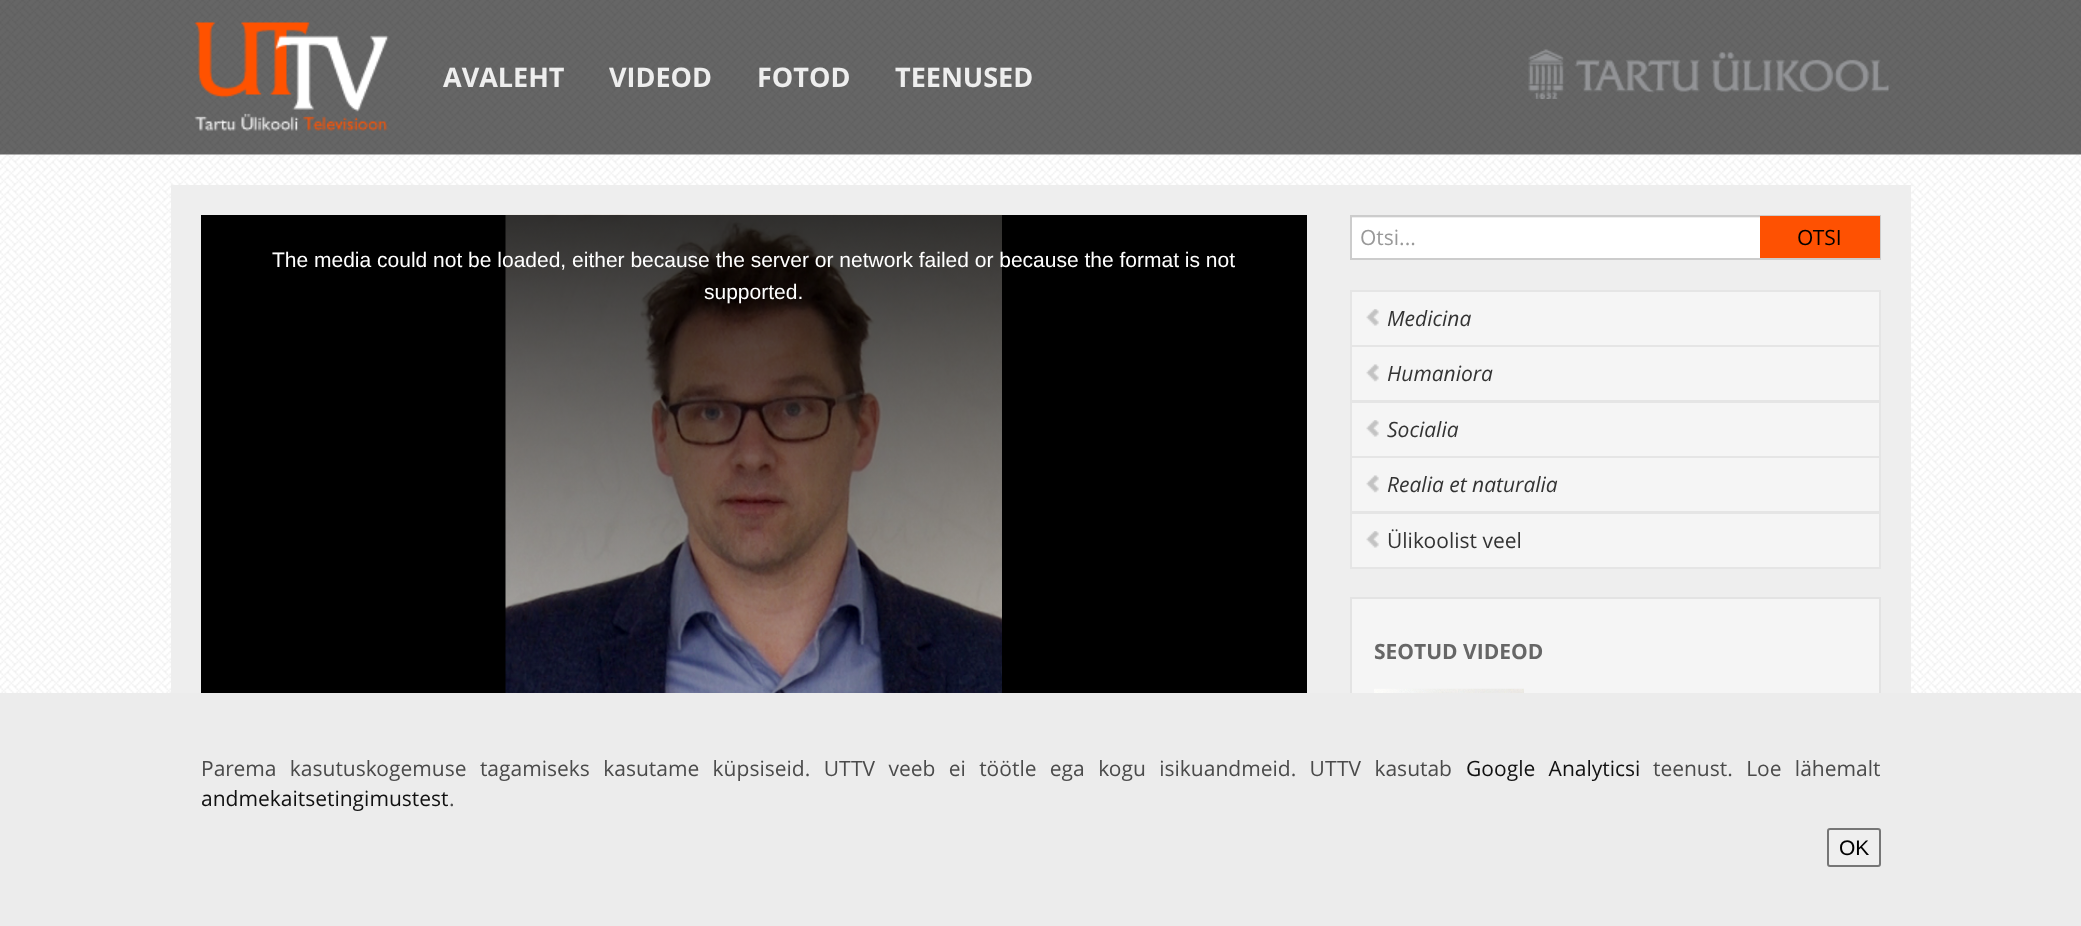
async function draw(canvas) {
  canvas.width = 2081;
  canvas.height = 926;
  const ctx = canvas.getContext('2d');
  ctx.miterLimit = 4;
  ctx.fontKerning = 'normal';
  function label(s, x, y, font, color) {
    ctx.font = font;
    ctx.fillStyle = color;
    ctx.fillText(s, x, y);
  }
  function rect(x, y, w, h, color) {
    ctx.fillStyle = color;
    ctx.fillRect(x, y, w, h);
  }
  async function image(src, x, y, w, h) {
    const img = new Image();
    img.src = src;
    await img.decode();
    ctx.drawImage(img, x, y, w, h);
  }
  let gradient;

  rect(0, 0, 2081, 926, '#fff');
  await image('assets/img1.png', 0, 0, 2081, 155);
  await image('assets/img2.png', 194, 22, 195, 109);
  label('AVALEHT', 443, 87, 'bold 27px Open Sans', '#eee');
  label('VIDEOD', 609, 87, 'bold 27px Open Sans', '#eee');
  label('FOTOD', 757, 87, 'bold 27px Open Sans', '#eee');
  label('TEENUSED', 895, 87, 'bold 27px Open Sans', '#eee');
  await image('assets/img3.png', 1528, 49, 361, 50);
  await image('assets/img4.png', 0, 154, 2081, 539);
  rect(171, 185, 1740, 508, '#eee');
  rect(201, 215, 1106, 478, '#000');
  await image('assets/img5.png', 505, 214, 497, 479);
  gradient = ctx.createLinearGradient(754, 214, 754, 837);
  gradient.addColorStop(0, '#000000cc');
  gradient.addColorStop(1, '#00000000');
  ctx.fillStyle = gradient;
  ctx.fillRect(505, 215, 497, 478);
  label('The media could not be loaded, either because the server or network failed or because the format is not', 272, 267, '21px Liberation Sans', '#fff');
  label('supported.', 704, 299, '21px Liberation Sans', '#fff');
  rect(1352, 218, 408, 40, '#fff');
  ctx.strokeStyle = '#ccc';
  ctx.lineWidth = 2;
  ctx.strokeRect(1351, 216, 529, 43);
  label('Otsi...', 1360, 245, '21px Open Sans', '#999');
  rect(1760, 216, 120, 42, '#fe5102');
  label('OTSI', 1797, 245, '21px Open Sans', '#000');
  rect(1352, 292, 527, 275, '#f5f5f5');
  ctx.strokeStyle = '#e5e5e5';
  ctx.strokeRect(1351, 291, 529, 55);
  await image('assets/img6.png', 1366, 309, 13, 17);
  label('Medicina', 1387, 326, 'italic 21px Open Sans', '#333');
  ctx.strokeRect(1351, 346, 529, 55);
  await image('assets/img7.png', 1366, 364, 13, 18);
  label('Humaniora', 1387, 381, 'italic 21px Open Sans', '#333');
  ctx.strokeRect(1351, 402, 529, 55);
  await image('assets/img6.png', 1366, 420, 13, 17);
  label('Socialia', 1387, 437, 'italic 21px Open Sans', '#333');
  ctx.strokeRect(1351, 457, 529, 55);
  await image('assets/img7.png', 1366, 475, 13, 18);
  label('Realia et naturalia', 1387, 492, 'italic 21px Open Sans', '#333');
  ctx.strokeRect(1351, 513, 529, 55);
  await image('assets/img6.png', 1366, 531, 13, 17);
  label('Ülikoolist veel', 1387, 548, '21px Open Sans', '#333');
  rect(1352, 599, 527, 94, '#f5f5f5');
  ctx.strokeStyle = '#e3e3e3';
  ctx.strokeRect(1351, 598, 529, 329);
  label('SEOTUD VIDEOD', 1374, 659, 'bold 21px Open Sans', '#666');
  await image('assets/img8.png', 1374, 688, 150, 5);
  rect(0, 693, 2081, 233, '#ececec');
  ctx.wordSpacing = '7.9px';
  label('Parema kasutuskogemuse tagamiseks kasutame küpsiseid. UTTV veeb ei töötle ega kogu isikuandmeid. UTTV kasutab', 201, 776, '21px Open Sans', '#4b4b4b');
  label('Google Analyticsi', 1466, 776, '21px Open Sans', '#111');
  label('teenust. Loe lähemalt', 1653, 776, '21px Open Sans', '#4b4b4b');
  ctx.wordSpacing = '0px';
  label('andmekaitsetingimustest', 201, 806, '21px Open Sans', '#111');
  label('.', 449, 806, '21px Open Sans', '#4b4b4b');
  ctx.fillStyle = '#efefef';
  ctx.beginPath();
  ctx.roundRect(1828, 829, 52, 37, 2);
  ctx.fill();
  ctx.strokeStyle = '#767676';
  ctx.stroke();
  label('OK', 1839, 855, '21px Liberation Sans', '#000');
}

draw(document.querySelector('canvas'));
